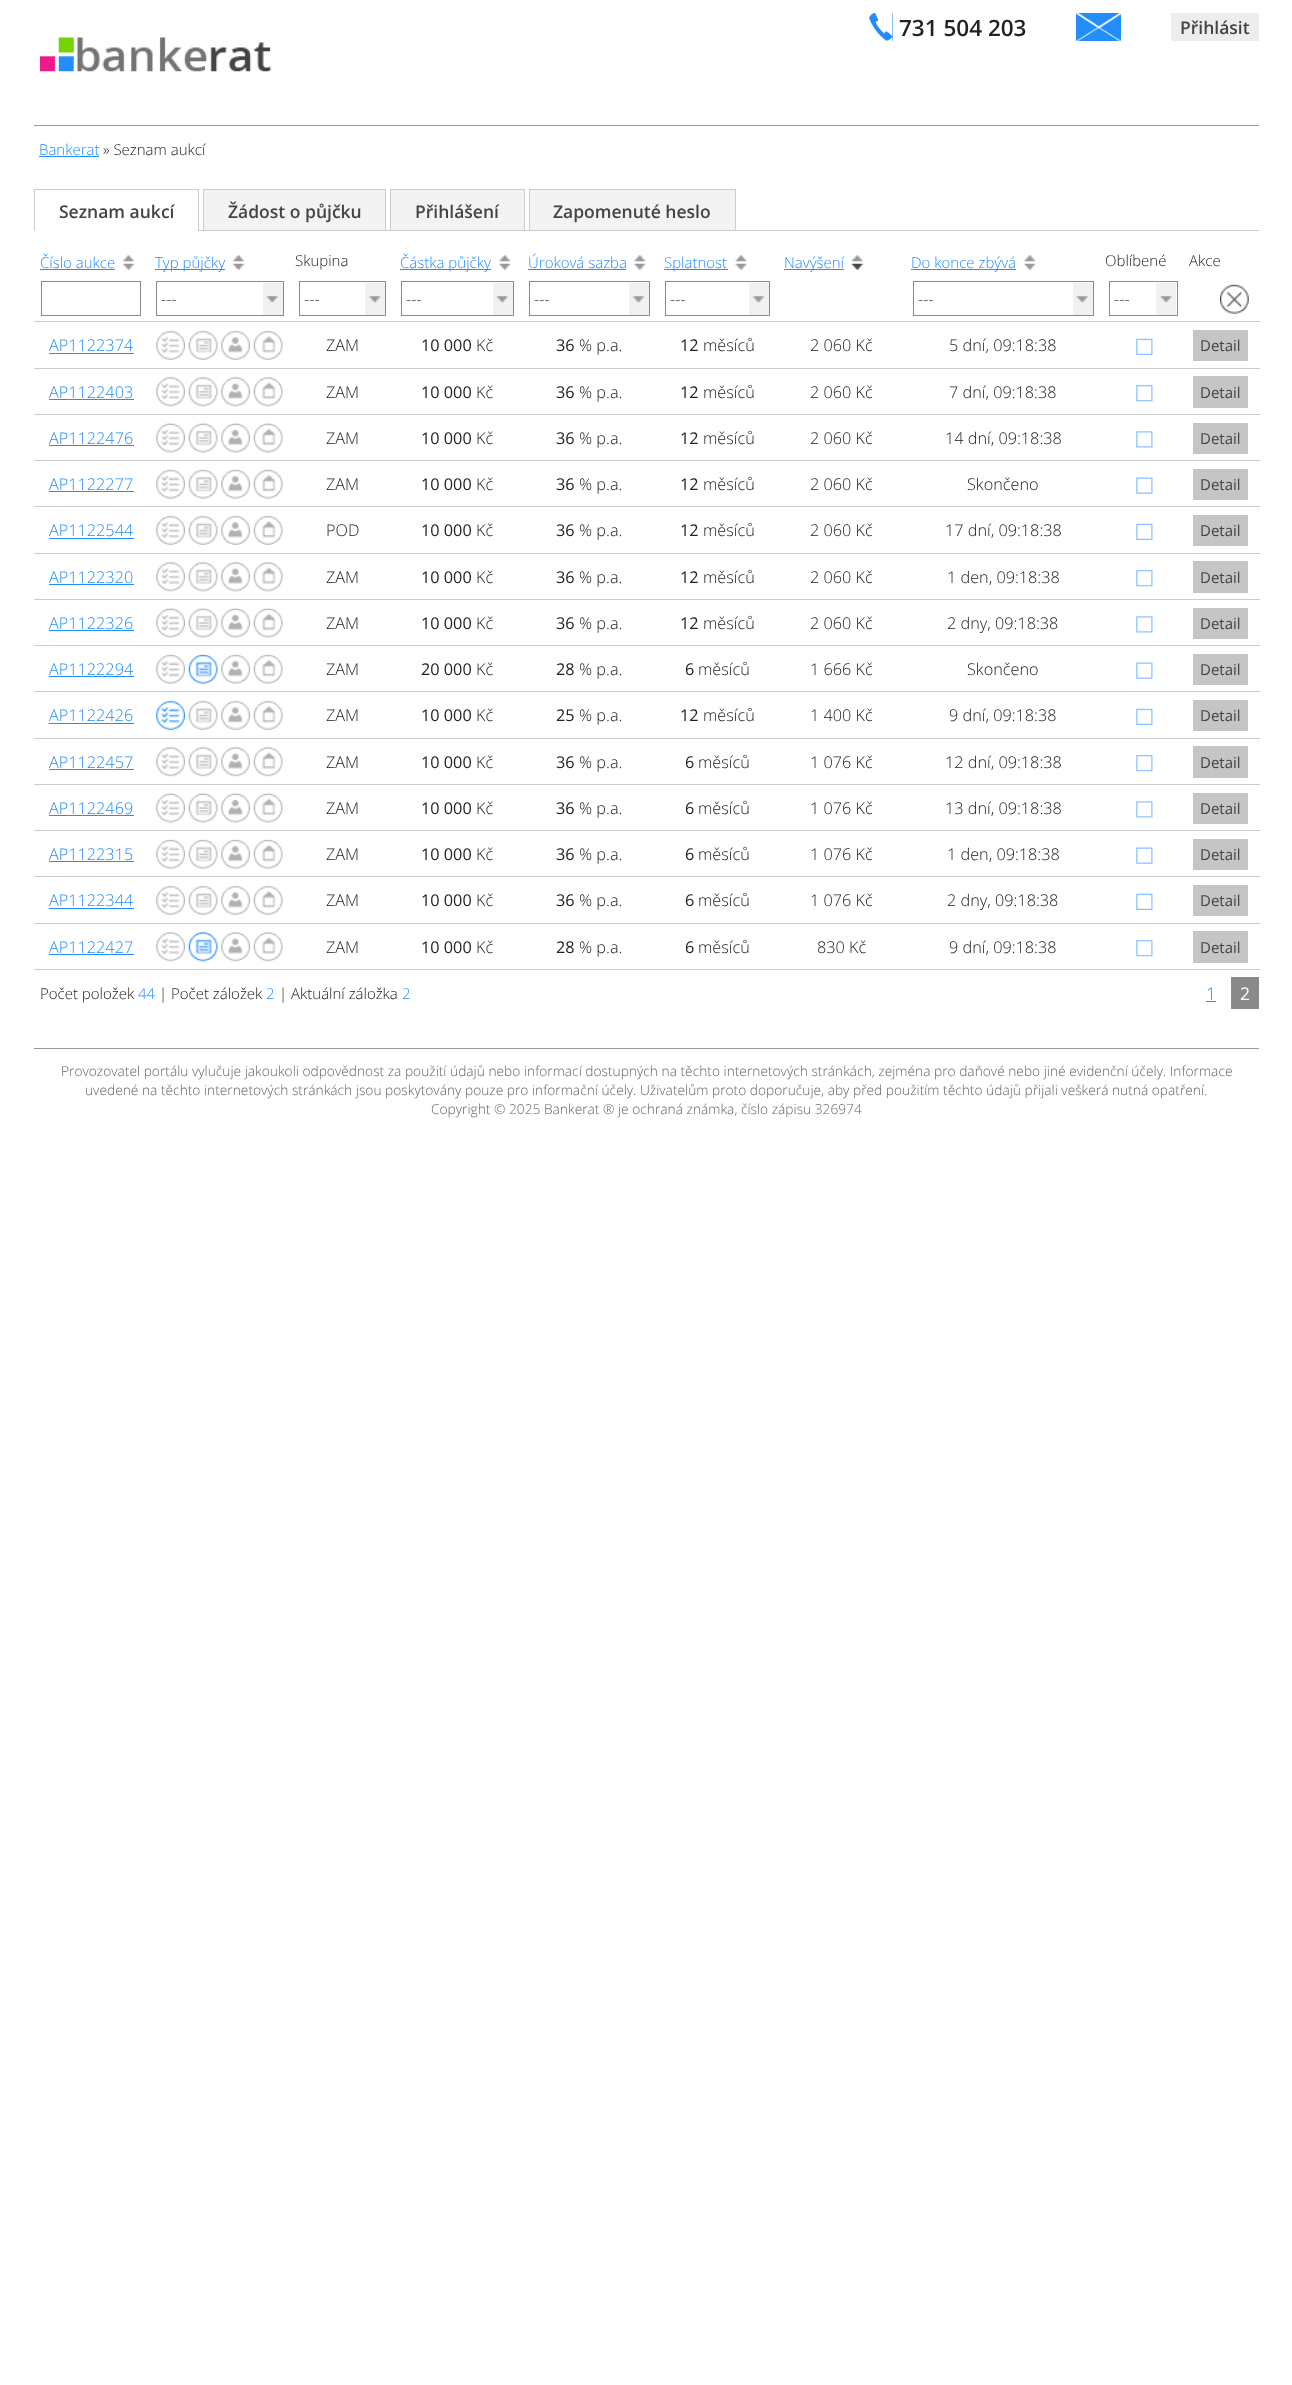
async function draw(canvas) {
  canvas.width = 1292;
  canvas.height = 2385;
  const ctx = canvas.getContext('2d');
  ctx.miterLimit = 4;
  ctx.fontKerning = 'normal';
  function label(s, x, y, font, color) {
    ctx.font = font;
    ctx.fillStyle = color;
    ctx.fillText(s, x, y);
  }
  function rect(x, y, w, h, color) {
    ctx.fillStyle = color;
    ctx.fillRect(x, y, w, h);
  }
  async function image(src, x, y, w, h) {
    const img = new Image();
    img.src = src;
    await img.decode();
    ctx.drawImage(img, x, y, w, h);
  }

  rect(0, 0, 1292, 2385, '#fff');
  rect(34, 125, 1225, 1, '#989898');
  rect(869, 13, 24, 28, '#238dfa');
  await image('assets/img1.png', 869, 13, 24, 28);
  label('731 504 203', 899, 36, '600 22.5px Open Sans', '#222');
  rect(1076, 13, 45, 28, '#238dfa');
  await image('assets/img2.png', 1076, 13, 45, 28);
  rect(1171, 13, 88, 28, '#ededed');
  label('Přihlásit', 1180, 34, '600 17.5px Open Sans', '#444');
  await image('assets/img3.png', 40, 37, 232, 35);
  label('Bankerat', 39, 155, '300 15px Open Sans', '#238dfa');
  rect(39, 156, 60, 1, '#238dfa');
  label('» Seznam aukcí', 103, 155, '300 15px Open Sans', '#222');
  label('Číslo aukce', 40, 268, '300 15px Open Sans', '#238dfa');
  rect(40, 269, 75, 1, '#238dfa');
  await image('assets/img4.png', 122, 255, 13, 7);
  await image('assets/img5.png', 122, 263, 13, 7);
  rect(155, 269, 70, 1, '#238dfa');
  label('Typ půjčky', 155, 268, '300 15px Open Sans', '#238dfa');
  await image('assets/img4.png', 232, 255, 13, 7);
  await image('assets/img5.png', 232, 263, 13, 7);
  label('Skupina', 295, 266, '300 15px Open Sans', '#222');
  rect(400, 269, 91, 1, '#238dfa');
  label('Částka půjčky', 400, 268, '300 15px Open Sans', '#238dfa');
  await image('assets/img6.png', 498, 255, 13, 7);
  await image('assets/img7.png', 498, 263, 13, 7);
  label('Úroková sazba', 528, 268, '300 15px Open Sans', '#238dfa');
  rect(528, 269, 98, 1, '#238dfa');
  await image('assets/img6.png', 633, 255, 13, 7);
  await image('assets/img7.png', 633, 263, 13, 7);
  rect(664, 269, 64, 1, '#238dfa');
  label('Splatnost', 664, 268, '300 15px Open Sans', '#238dfa');
  await image('assets/img8.png', 735, 255, 13, 7);
  await image('assets/img9.png', 735, 263, 13, 7);
  rect(784, 269, 60, 1, '#238dfa');
  label('Navýšení', 784, 268, '300 15px Open Sans', '#238dfa');
  await image('assets/img10.png', 851, 255, 13, 7);
  await image('assets/img11.png', 851, 263, 13, 7);
  rect(911, 269, 105, 1, '#238dfa');
  label('Do konce zbývá', 911, 268, '300 15px Open Sans', '#238dfa');
  await image('assets/img12.png', 1023, 255, 13, 7);
  await image('assets/img13.png', 1023, 263, 13, 7);
  label('Oblíbené', 1105, 266, '300 15px Open Sans', '#222');
  label('Akce', 1189, 266, '300 15px Open Sans', '#222');
  ctx.strokeStyle = '#8a8a8a';
  ctx.strokeRect(41.5, 281.5, 99, 34);
  rect(34, 321, 1226, 1, '#ccc');
  await image('assets/img14.png', 1220, 283, 29, 31);
  ctx.strokeRect(156.5, 281.5, 127, 34);
  label('---', 161, 305, '300 16.25px Open Sans', '#444');
  rect(263, 283, 20, 32, '#f1f1f1');
  await image('assets/img15.png', 266, 296, 13, 7);
  ctx.strokeRect(299.5, 281.5, 86, 34);
  label('---', 304, 305, '300 16.25px Open Sans', '#444');
  rect(365, 283, 20, 32, '#f1f1f1');
  await image('assets/img16.png', 368, 296, 13, 7);
  ctx.strokeRect(401.5, 281.5, 112, 34);
  label('---', 406, 305, '300 16.25px Open Sans', '#444');
  rect(493, 283, 20, 32, '#f1f1f1');
  await image('assets/img15.png', 496, 296, 13, 7);
  ctx.strokeRect(529.5, 281.5, 120, 34);
  label('---', 534, 305, '300 16.25px Open Sans', '#444');
  rect(629, 283, 20, 32, '#f1f1f1');
  await image('assets/img17.png', 632, 296, 13, 7);
  ctx.strokeRect(665.5, 281.5, 104, 34);
  label('---', 670, 305, '300 16.25px Open Sans', '#444');
  rect(749, 283, 20, 32, '#f1f1f1');
  await image('assets/img17.png', 752, 296, 13, 7);
  ctx.strokeRect(913.5, 281.5, 180, 34);
  label('---', 918, 305, '300 16.25px Open Sans', '#444');
  rect(1073, 283, 20, 32, '#f1f1f1');
  await image('assets/img15.png', 1076, 296, 13, 7);
  ctx.strokeRect(1109.5, 281.5, 68, 34);
  label('---', 1114, 305, '300 16.25px Open Sans', '#444');
  rect(1156, 283, 20, 32, '#f1f1f1');
  await image('assets/img18.png', 1160, 296, 12, 7);
  label('AP1122374', 49, 351, '300 16.25px Open Sans', '#238dfa');
  rect(49, 353, 85, 1, '#238dfa');
  await image('assets/img19.png', 156, 330, 29, 30);
  await image('assets/img20.png', 188, 330, 30, 30);
  await image('assets/img21.png', 221, 330, 29, 30);
  await image('assets/img22.png', 253, 330, 30, 30);
  label('ZAM', 326, 351, '300 16.25px Open Sans', '#222');
  label('10 000', 421, 351, '16.25px Open Sans', '#222');
  label('Kč', 476, 351, '300 16.25px Open Sans', '#222');
  label('36', 556, 351, '16.25px Open Sans', '#222');
  label('% p.a.', 579, 351, '300 16.25px Open Sans', '#222');
  label('12', 680, 351, '16.25px Open Sans', '#222');
  label('měsíců', 703, 351, '300 16.25px Open Sans', '#222');
  label('2 060 Kč', 810, 351, '300 16.25px Open Sans', '#222');
  label('5 dní, 09:18:38', 949, 351, '300 16.25px Open Sans', '#222');
  await image('assets/img23.png', 1136, 338, 17, 17);
  rect(34, 368, 1226, 1, '#ccc');
  rect(1193, 330, 55, 31, '#c5c5c5');
  label('Detail', 1200, 351, '15px Open Sans', '#444');
  label('AP1122403', 49, 398, '300 16.25px Open Sans', '#238dfa');
  rect(49, 399, 85, 1, '#238dfa');
  await image('assets/img24.png', 156, 376, 29, 31);
  await image('assets/img25.png', 188, 376, 30, 31);
  await image('assets/img26.png', 221, 376, 29, 31);
  await image('assets/img27.png', 253, 376, 30, 31);
  label('ZAM', 326, 398, '300 16.25px Open Sans', '#222');
  label('10 000', 421, 398, '16.25px Open Sans', '#222');
  label('Kč', 476, 398, '300 16.25px Open Sans', '#222');
  label('36', 556, 398, '16.25px Open Sans', '#222');
  label('% p.a.', 579, 398, '300 16.25px Open Sans', '#222');
  label('12', 680, 398, '16.25px Open Sans', '#222');
  label('měsíců', 703, 398, '300 16.25px Open Sans', '#222');
  label('2 060 Kč', 810, 398, '300 16.25px Open Sans', '#222');
  label('7 dní, 09:18:38', 949, 398, '300 16.25px Open Sans', '#222');
  await image('assets/img28.png', 1136, 384, 17, 18);
  rect(34, 414, 1226, 1, '#ccc');
  rect(1193, 376, 55, 32, '#c5c5c5');
  label('Detail', 1200, 398, '15px Open Sans', '#444');
  label('AP1122476', 49, 444, '300 16.25px Open Sans', '#238dfa');
  rect(49, 445, 85, 1, '#238dfa');
  await image('assets/img29.png', 156, 422, 29, 31);
  await image('assets/img30.png', 188, 422, 30, 31);
  await image('assets/img31.png', 221, 422, 29, 31);
  await image('assets/img32.png', 253, 422, 30, 31);
  label('ZAM', 326, 444, '300 16.25px Open Sans', '#222');
  label('10 000', 421, 444, '16.25px Open Sans', '#222');
  label('Kč', 476, 444, '300 16.25px Open Sans', '#222');
  label('36', 556, 444, '16.25px Open Sans', '#222');
  label('% p.a.', 579, 444, '300 16.25px Open Sans', '#222');
  label('12', 680, 444, '16.25px Open Sans', '#222');
  label('měsíců', 703, 444, '300 16.25px Open Sans', '#222');
  label('2 060 Kč', 810, 444, '300 16.25px Open Sans', '#222');
  label('14 dní, 09:18:38', 945, 444, '300 16.25px Open Sans', '#222');
  await image('assets/img33.png', 1136, 431, 17, 17);
  rect(34, 460, 1226, 1, '#ccc');
  rect(1193, 423, 55, 31, '#c5c5c5');
  label('Detail', 1200, 444, '15px Open Sans', '#444');
  label('AP1122277', 49, 490, '300 16.25px Open Sans', '#238dfa');
  rect(49, 491, 85, 1, '#238dfa');
  await image('assets/img34.png', 156, 469, 29, 30);
  await image('assets/img35.png', 188, 469, 30, 30);
  await image('assets/img36.png', 221, 469, 29, 30);
  await image('assets/img37.png', 253, 469, 30, 30);
  label('ZAM', 326, 490, '300 16.25px Open Sans', '#222');
  label('10 000', 421, 490, '16.25px Open Sans', '#222');
  label('Kč', 476, 490, '300 16.25px Open Sans', '#222');
  label('36', 556, 490, '16.25px Open Sans', '#222');
  label('% p.a.', 579, 490, '300 16.25px Open Sans', '#222');
  label('12', 680, 490, '16.25px Open Sans', '#222');
  label('měsíců', 703, 490, '300 16.25px Open Sans', '#222');
  label('2 060 Kč', 810, 490, '300 16.25px Open Sans', '#222');
  label('Skončeno', 967, 490, '300 16.25px Open Sans', '#222');
  await image('assets/img38.png', 1136, 477, 17, 17);
  rect(34, 506, 1226, 1, '#ccc');
  rect(1193, 469, 55, 31, '#c5c5c5');
  label('Detail', 1200, 490, '15px Open Sans', '#444');
  label('AP1122544', 49, 536, '300 16.25px Open Sans', '#238dfa');
  rect(49, 538, 85, 1, '#238dfa');
  await image('assets/img19.png', 156, 515, 29, 30);
  await image('assets/img20.png', 188, 515, 30, 30);
  await image('assets/img21.png', 221, 515, 29, 30);
  await image('assets/img22.png', 253, 515, 30, 30);
  label('POD', 326, 536, '300 16.25px Open Sans', '#222');
  label('10 000', 421, 536, '16.25px Open Sans', '#222');
  label('Kč', 476, 536, '300 16.25px Open Sans', '#222');
  label('36', 556, 536, '16.25px Open Sans', '#222');
  label('% p.a.', 579, 536, '300 16.25px Open Sans', '#222');
  label('12', 680, 536, '16.25px Open Sans', '#222');
  label('měsíců', 703, 536, '300 16.25px Open Sans', '#222');
  label('2 060 Kč', 810, 536, '300 16.25px Open Sans', '#222');
  label('17 dní, 09:18:38', 945, 536, '300 16.25px Open Sans', '#222');
  await image('assets/img23.png', 1136, 523, 17, 17);
  rect(34, 553, 1226, 1, '#ccc');
  rect(1193, 515, 55, 31, '#c5c5c5');
  label('Detail', 1200, 536, '15px Open Sans', '#444');
  label('AP1122320', 49, 583, '300 16.25px Open Sans', '#238dfa');
  rect(49, 584, 85, 1, '#238dfa');
  await image('assets/img24.png', 156, 561, 29, 31);
  await image('assets/img25.png', 188, 561, 30, 31);
  await image('assets/img26.png', 221, 561, 29, 31);
  await image('assets/img27.png', 253, 561, 30, 31);
  label('ZAM', 326, 583, '300 16.25px Open Sans', '#222');
  label('10 000', 421, 583, '16.25px Open Sans', '#222');
  label('Kč', 476, 583, '300 16.25px Open Sans', '#222');
  label('36', 556, 583, '16.25px Open Sans', '#222');
  label('% p.a.', 579, 583, '300 16.25px Open Sans', '#222');
  label('12', 680, 583, '16.25px Open Sans', '#222');
  label('měsíců', 703, 583, '300 16.25px Open Sans', '#222');
  label('2 060 Kč', 810, 583, '300 16.25px Open Sans', '#222');
  label('1 den, 09:18:38', 947, 583, '300 16.25px Open Sans', '#222');
  await image('assets/img28.png', 1136, 569, 17, 18);
  rect(34, 599, 1226, 1, '#ccc');
  rect(1193, 561, 55, 32, '#c5c5c5');
  label('Detail', 1200, 583, '15px Open Sans', '#444');
  label('AP1122326', 49, 629, '300 16.25px Open Sans', '#238dfa');
  rect(49, 630, 85, 1, '#238dfa');
  await image('assets/img29.png', 156, 607, 29, 31);
  await image('assets/img30.png', 188, 607, 30, 31);
  await image('assets/img31.png', 221, 607, 29, 31);
  await image('assets/img32.png', 253, 607, 30, 31);
  label('ZAM', 326, 629, '300 16.25px Open Sans', '#222');
  label('10 000', 421, 629, '16.25px Open Sans', '#222');
  label('Kč', 476, 629, '300 16.25px Open Sans', '#222');
  label('36', 556, 629, '16.25px Open Sans', '#222');
  label('% p.a.', 579, 629, '300 16.25px Open Sans', '#222');
  label('12', 680, 629, '16.25px Open Sans', '#222');
  label('měsíců', 703, 629, '300 16.25px Open Sans', '#222');
  label('2 060 Kč', 810, 629, '300 16.25px Open Sans', '#222');
  label('2 dny, 09:18:38', 947, 629, '300 16.25px Open Sans', '#222');
  await image('assets/img33.png', 1136, 616, 17, 17);
  rect(34, 645, 1226, 1, '#ccc');
  rect(1193, 608, 55, 31, '#c5c5c5');
  label('Detail', 1200, 629, '15px Open Sans', '#444');
  label('AP1122294', 49, 675, '300 16.25px Open Sans', '#238dfa');
  rect(49, 676, 85, 1, '#238dfa');
  await image('assets/img34.png', 156, 654, 29, 30);
  await image('assets/img39.png', 188, 653, 30, 31);
  await image('assets/img36.png', 221, 654, 29, 30);
  await image('assets/img37.png', 253, 654, 30, 30);
  label('ZAM', 326, 675, '300 16.25px Open Sans', '#222');
  label('20 000', 421, 675, '16.25px Open Sans', '#222');
  label('Kč', 476, 675, '300 16.25px Open Sans', '#222');
  label('28', 556, 675, '16.25px Open Sans', '#222');
  label('% p.a.', 579, 675, '300 16.25px Open Sans', '#222');
  label('6', 685, 675, '16.25px Open Sans', '#222');
  label('měsíců', 698, 675, '300 16.25px Open Sans', '#222');
  label('1 666 Kč', 810, 675, '300 16.25px Open Sans', '#222');
  label('Skončeno', 967, 675, '300 16.25px Open Sans', '#222');
  await image('assets/img38.png', 1136, 662, 17, 17);
  rect(34, 691, 1226, 1, '#ccc');
  rect(1193, 654, 55, 31, '#c5c5c5');
  label('Detail', 1200, 675, '15px Open Sans', '#444');
  label('AP1122426', 49, 721, '300 16.25px Open Sans', '#238dfa');
  rect(49, 723, 85, 1, '#238dfa');
  await image('assets/img40.png', 156, 700, 29, 30);
  await image('assets/img20.png', 188, 700, 30, 30);
  await image('assets/img21.png', 221, 700, 29, 30);
  await image('assets/img22.png', 253, 700, 30, 30);
  label('ZAM', 326, 721, '300 16.25px Open Sans', '#222');
  label('10 000', 421, 721, '16.25px Open Sans', '#222');
  label('Kč', 476, 721, '300 16.25px Open Sans', '#222');
  label('25', 556, 721, '16.25px Open Sans', '#222');
  label('% p.a.', 579, 721, '300 16.25px Open Sans', '#222');
  label('12', 680, 721, '16.25px Open Sans', '#222');
  label('měsíců', 703, 721, '300 16.25px Open Sans', '#222');
  label('1 400 Kč', 810, 721, '300 16.25px Open Sans', '#222');
  label('9 dní, 09:18:38', 949, 721, '300 16.25px Open Sans', '#222');
  await image('assets/img23.png', 1136, 708, 17, 17);
  rect(34, 738, 1226, 1, '#ccc');
  rect(1193, 700, 55, 31, '#c5c5c5');
  label('Detail', 1200, 721, '15px Open Sans', '#444');
  label('AP1122457', 49, 768, '300 16.25px Open Sans', '#238dfa');
  rect(49, 769, 85, 1, '#238dfa');
  await image('assets/img24.png', 156, 746, 29, 31);
  await image('assets/img25.png', 188, 746, 30, 31);
  await image('assets/img26.png', 221, 746, 29, 31);
  await image('assets/img27.png', 253, 746, 30, 31);
  label('ZAM', 326, 768, '300 16.25px Open Sans', '#222');
  label('10 000', 421, 768, '16.25px Open Sans', '#222');
  label('Kč', 476, 768, '300 16.25px Open Sans', '#222');
  label('36', 556, 768, '16.25px Open Sans', '#222');
  label('% p.a.', 579, 768, '300 16.25px Open Sans', '#222');
  label('6', 685, 768, '16.25px Open Sans', '#222');
  label('měsíců', 698, 768, '300 16.25px Open Sans', '#222');
  label('1 076 Kč', 810, 768, '300 16.25px Open Sans', '#222');
  label('12 dní, 09:18:38', 945, 768, '300 16.25px Open Sans', '#222');
  await image('assets/img28.png', 1136, 754, 17, 18);
  rect(34, 784, 1226, 1, '#ccc');
  rect(1193, 746, 55, 32, '#c5c5c5');
  label('Detail', 1200, 768, '15px Open Sans', '#444');
  label('AP1122469', 49, 814, '300 16.25px Open Sans', '#238dfa');
  rect(49, 815, 85, 1, '#238dfa');
  await image('assets/img29.png', 156, 792, 29, 31);
  await image('assets/img30.png', 188, 792, 30, 31);
  await image('assets/img31.png', 221, 792, 29, 31);
  await image('assets/img32.png', 253, 792, 30, 31);
  label('ZAM', 326, 814, '300 16.25px Open Sans', '#222');
  label('10 000', 421, 814, '16.25px Open Sans', '#222');
  label('Kč', 476, 814, '300 16.25px Open Sans', '#222');
  label('36', 556, 814, '16.25px Open Sans', '#222');
  label('% p.a.', 579, 814, '300 16.25px Open Sans', '#222');
  label('6', 685, 814, '16.25px Open Sans', '#222');
  label('měsíců', 698, 814, '300 16.25px Open Sans', '#222');
  label('1 076 Kč', 810, 814, '300 16.25px Open Sans', '#222');
  label('13 dní, 09:18:38', 945, 814, '300 16.25px Open Sans', '#222');
  await image('assets/img33.png', 1136, 801, 17, 17);
  rect(34, 830, 1226, 1, '#ccc');
  rect(1193, 793, 55, 31, '#c5c5c5');
  label('Detail', 1200, 814, '15px Open Sans', '#444');
  label('AP1122315', 49, 860, '300 16.25px Open Sans', '#238dfa');
  rect(49, 861, 85, 1, '#238dfa');
  await image('assets/img34.png', 156, 839, 29, 30);
  await image('assets/img35.png', 188, 839, 30, 30);
  await image('assets/img36.png', 221, 839, 29, 30);
  await image('assets/img37.png', 253, 839, 30, 30);
  label('ZAM', 326, 860, '300 16.25px Open Sans', '#222');
  label('10 000', 421, 860, '16.25px Open Sans', '#222');
  label('Kč', 476, 860, '300 16.25px Open Sans', '#222');
  label('36', 556, 860, '16.25px Open Sans', '#222');
  label('% p.a.', 579, 860, '300 16.25px Open Sans', '#222');
  label('6', 685, 860, '16.25px Open Sans', '#222');
  label('měsíců', 698, 860, '300 16.25px Open Sans', '#222');
  label('1 076 Kč', 810, 860, '300 16.25px Open Sans', '#222');
  label('1 den, 09:18:38', 947, 860, '300 16.25px Open Sans', '#222');
  await image('assets/img38.png', 1136, 847, 17, 17);
  rect(34, 876, 1226, 1, '#ccc');
  rect(1193, 839, 55, 31, '#c5c5c5');
  label('Detail', 1200, 860, '15px Open Sans', '#444');
  label('AP1122344', 49, 906, '300 16.25px Open Sans', '#238dfa');
  rect(49, 908, 85, 1, '#238dfa');
  await image('assets/img19.png', 156, 885, 29, 30);
  await image('assets/img20.png', 188, 885, 30, 30);
  await image('assets/img21.png', 221, 885, 29, 30);
  await image('assets/img22.png', 253, 885, 30, 30);
  label('ZAM', 326, 906, '300 16.25px Open Sans', '#222');
  label('10 000', 421, 906, '16.25px Open Sans', '#222');
  label('Kč', 476, 906, '300 16.25px Open Sans', '#222');
  label('36', 556, 906, '16.25px Open Sans', '#222');
  label('% p.a.', 579, 906, '300 16.25px Open Sans', '#222');
  label('6', 685, 906, '16.25px Open Sans', '#222');
  label('měsíců', 698, 906, '300 16.25px Open Sans', '#222');
  label('1 076 Kč', 810, 906, '300 16.25px Open Sans', '#222');
  label('2 dny, 09:18:38', 947, 906, '300 16.25px Open Sans', '#222');
  await image('assets/img23.png', 1136, 893, 17, 17);
  rect(34, 923, 1226, 1, '#ccc');
  rect(1193, 885, 55, 31, '#c5c5c5');
  label('Detail', 1200, 906, '15px Open Sans', '#444');
  label('AP1122427', 49, 953, '300 16.25px Open Sans', '#238dfa');
  rect(49, 954, 85, 1, '#238dfa');
  await image('assets/img24.png', 156, 931, 29, 31);
  await image('assets/img41.png', 188, 931, 30, 31);
  await image('assets/img26.png', 221, 931, 29, 31);
  await image('assets/img27.png', 253, 931, 30, 31);
  label('ZAM', 326, 953, '300 16.25px Open Sans', '#222');
  label('10 000', 421, 953, '16.25px Open Sans', '#222');
  label('Kč', 476, 953, '300 16.25px Open Sans', '#222');
  label('28', 556, 953, '16.25px Open Sans', '#222');
  label('% p.a.', 579, 953, '300 16.25px Open Sans', '#222');
  label('6', 685, 953, '16.25px Open Sans', '#222');
  label('měsíců', 698, 953, '300 16.25px Open Sans', '#222');
  label('830 Kč', 817, 953, '300 16.25px Open Sans', '#222');
  label('9 dní, 09:18:38', 949, 953, '300 16.25px Open Sans', '#222');
  await image('assets/img28.png', 1136, 939, 17, 18);
  rect(34, 969, 1226, 1, '#ccc');
  rect(1193, 931, 55, 32, '#c5c5c5');
  label('Detail', 1200, 953, '15px Open Sans', '#444');
  label('Počet položek', 40, 999, '300 15px Open Sans', '#222');
  label('44', 138, 999, '300 15px Open Sans', '#238dfa');
  label('| Počet záložek', 159, 999, '300 15px Open Sans', '#222');
  label('2', 266, 999, '300 15px Open Sans', '#238dfa');
  label('| Aktuální záložka', 279, 999, '300 15px Open Sans', '#222');
  label('2', 402, 999, '300 15px Open Sans', '#238dfa');
  label('1', 1206, 1000, '300 17.5px Open Sans', '#238dfa');
  rect(1206, 1001, 10, 1, '#238dfa');
  rect(1231, 977, 28, 32, '#8a8a8a');
  label('2', 1240, 1000, '17.5px Open Sans', '#fff');
  rect(199, 230, 1060, 1, '#ccc');
  rect(34, 189, 165, 1, '#ccc');
  rect(198, 189, 1, 42, '#ccc');
  rect(34, 189, 1, 42, '#ccc');
  label('Seznam aukcí', 59, 218, '600 17.5px Open Sans', '#444');
  rect(203, 189, 183, 1, '#ccc');
  rect(385, 189, 1, 42, '#ccc');
  rect(203, 189, 1, 42, '#ccc');
  rect(204, 190, 181, 40, '#f3f3f3');
  label('Žádost o půjčku', 228, 218, '600 17.5px Open Sans', '#444');
  rect(390, 189, 135, 1, '#ccc');
  rect(524, 189, 1, 42, '#ccc');
  rect(390, 189, 1, 42, '#ccc');
  rect(391, 190, 133, 40, '#f3f3f3');
  label('Přihlášení', 415, 218, '600 17.5px Open Sans', '#444');
  rect(529, 189, 207, 1, '#ccc');
  rect(735, 189, 1, 42, '#ccc');
  rect(529, 189, 1, 42, '#ccc');
  rect(530, 190, 205, 40, '#f3f3f3');
  label('Zapomenuté heslo', 553, 218, '600 17.5px Open Sans', '#444');
  rect(34, 1048, 1225, 1, '#989898');
  label('Provozovatel portálu vylučuje jakoukoli odpovědnost za použití údajů nebo informací dostupných na těchto internetových stránkách, zejména pro daňové nebo jiné evidenční účely. Informace', 61, 1076, '300 13.75px Open Sans', '#666');
  label('uvedené na těchto internetových stránkách jsou poskytovány pouze pro informační účely. Uživatelům proto doporučuje, aby před použitím těchto údajů přijali veškerá nutná opatření.', 85, 1095, '300 13.75px Open Sans', '#666');
  label('Copyright © 2025 Bankerat ® je ochraná známka, číslo zápisu 326974', 431, 1114, '300 13.75px Open Sans', '#666');
}

draw(document.querySelector('canvas'));
